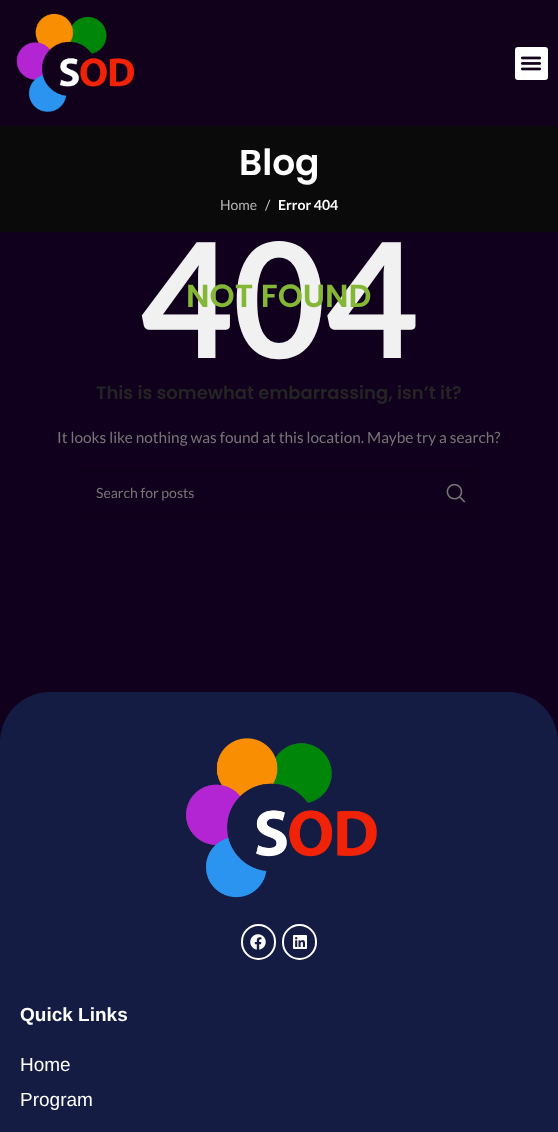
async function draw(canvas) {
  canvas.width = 558;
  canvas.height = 1132;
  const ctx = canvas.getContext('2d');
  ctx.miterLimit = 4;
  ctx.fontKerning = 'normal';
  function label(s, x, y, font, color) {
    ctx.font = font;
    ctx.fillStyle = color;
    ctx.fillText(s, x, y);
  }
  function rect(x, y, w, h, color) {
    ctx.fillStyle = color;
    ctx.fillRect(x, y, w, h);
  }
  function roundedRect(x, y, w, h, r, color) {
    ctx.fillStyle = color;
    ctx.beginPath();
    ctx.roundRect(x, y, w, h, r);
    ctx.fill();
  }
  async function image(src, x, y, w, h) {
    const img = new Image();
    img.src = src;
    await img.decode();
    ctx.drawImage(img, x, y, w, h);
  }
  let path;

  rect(0, 0, 558, 1132, '#11001d');
  rect(0, 0, 558, 126, '#11011a');
  await image('assets/img1.png', 16, 13, 119, 99);
  roundedRect(515, 47, 33, 33, 3, '#fff');
  await image('assets/img2.png', 520, 56, 22, 15);
  rect(0, 126, 558, 106, '#0a0a0a');
  label('Blog', 239, 175, '600 36px Poppins', '#fff');
  label('Home', 220, 210, '14px Lato', '#b6b6b6');
  label('/', 265, 210, '14px Lato', '#cecece');
  label('Error 404', 278, 210, 'bold 14px Lato', '#fff');
  label('404', 140, 358, 'bold 160px Lato', '#f1f1f1');
  label('NOT FOUND', 186, 307, '600 32px Poppins', '#83b735');
  label('This is somewhat embarrassing, isn’t it?', 96, 399, '600 18px Poppins', '#242424');
  label('It looks like nothing was found at this location. Maybe try a search?', 57, 443, '15.4px Lato', '#767676');
  ctx.strokeStyle = '#0f001a';
  ctx.lineWidth = 2;
  ctx.strokeRect(80, 471, 398, 44);
  label('Search for posts', 96, 498, '14px Lato', '#767676');
  await image('assets/img3.png', 446, 483, 20, 20);
  ctx.fillStyle = '#151c44';
  path = new Path2D('M50 692H508C535.5 692 558 714.5 558 742V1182H0V742C0 714.5 22.5 692 50 692Z');
  ctx.fill(path);
  await image('assets/img4.png', 186, 738, 191, 160);
  ctx.beginPath();
  ctx.roundRect(242, 925, 33, 34, 16.5);
  ctx.strokeStyle = '#fff';
  ctx.stroke();
  await image('assets/img5.png', 250, 934, 16, 16);
  ctx.beginPath();
  ctx.roundRect(283, 925, 33, 34, 16.5);
  ctx.stroke();
  await image('assets/img6.png', 293, 935, 14, 14);
  label('Quick Links', 20, 1021, 'bold 19px Liberation Sans', '#fff');
  label('Home', 20, 1071, '19px Liberation Sans', '#fff');
  label('Program', 20, 1106, '19px Liberation Sans', '#fff');
}

draw(document.querySelector('canvas'));
